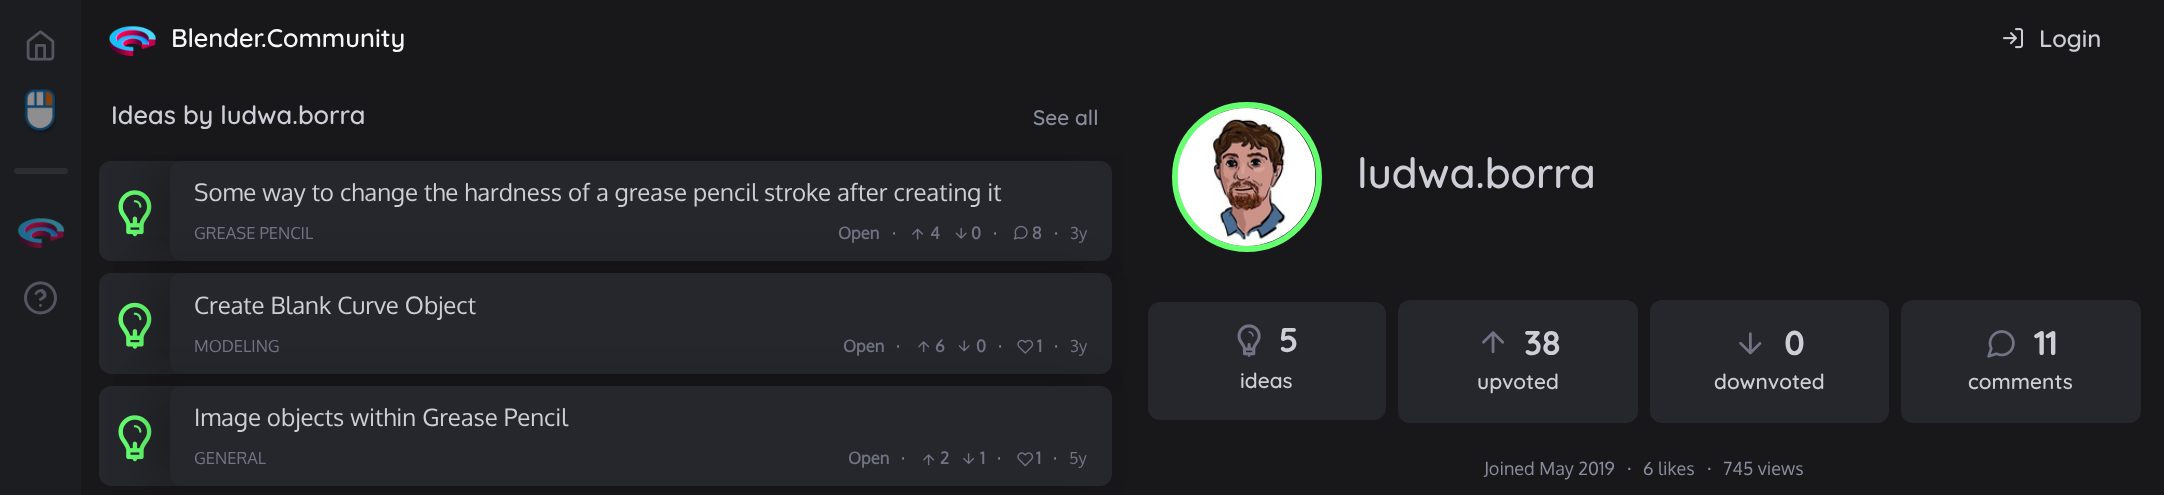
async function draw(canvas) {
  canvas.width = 2164;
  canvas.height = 495;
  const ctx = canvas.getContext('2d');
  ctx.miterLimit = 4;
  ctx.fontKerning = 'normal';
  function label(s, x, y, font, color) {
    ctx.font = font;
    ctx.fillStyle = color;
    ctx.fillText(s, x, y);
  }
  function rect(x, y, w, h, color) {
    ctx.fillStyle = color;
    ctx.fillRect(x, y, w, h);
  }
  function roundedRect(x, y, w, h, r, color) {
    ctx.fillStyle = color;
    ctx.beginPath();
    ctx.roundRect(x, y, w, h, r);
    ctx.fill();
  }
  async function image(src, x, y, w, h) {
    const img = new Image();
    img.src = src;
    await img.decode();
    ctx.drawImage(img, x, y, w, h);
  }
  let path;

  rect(0, 0, 2164, 495, '#18181b');
  rect(0, 0, 81, 495, '#1c1d21');
  await image('assets/img1.png', 26, 30, 29, 31);
  await image('assets/img2.png', 24, 89, 32, 44);
  roundedRect(14, 168, 54, 6, 3, '#2c2d33');
  await image('assets/img3.png', 17, 218, 48, 30);
  await image('assets/img4.png', 24, 281, 33, 34);
  await image('assets/img5.png', 109, 25, 47, 31);
  label('Blender.Community', 171, 47, '500 25.5px Quicksand', '#f7f7f8');
  await image('assets/img6.png', 2003, 28, 20, 21);
  label('Login', 2039, 47, '500 24px Quicksand', '#cdced6');
  label('Ideas by ludwa.borra', 111, 124, '500 25.5px Quicksand', '#cdced6');
  label('See all', 1033, 125, '500 21px Quicksand', '#898d9f');
  roundedRect(99, 161, 1013, 100, 12, '#26272c');
  await image('assets/img7.png', 118, 190, 34, 47);
  ctx.save();
  ctx.beginPath();
  ctx.rect(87, 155, 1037, 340);
  ctx.clip();
  path = new Path2D('M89 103H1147V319H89ZM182 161H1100C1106.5 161 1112 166.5 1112 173V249C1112 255.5 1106.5 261 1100 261H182C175.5 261 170 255.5 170 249V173C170 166.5 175.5 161 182 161Z');
  ctx.clip(path, 'evenodd');
  ctx.fillStyle = '#00000033';
  ctx.filter = 'blur(19px)';
  ctx.beginPath();
  ctx.roundRect(147, 161, 942, 100, 12);
  ctx.fill();
  ctx.filter = 'none';
  ctx.restore();
  label('Some way to change the hardness of a grease pencil stroke after creating it', 194, 201, '24px Oxygen', '#cdced6');
  label('GREASE PENCIL', 194, 239, '16.5px Oxygen', '#717484');
  label('Open', 838, 239, 'bold 16.5px Oxygen', '#717484');
  label('·', 892, 239, 'bold 16.5px Oxygen', '#898d9f');
  await image('assets/img8.png', 912, 228, 12, 12);
  label('4', 930, 239, 'bold 16.5px Oxygen', '#717484');
  await image('assets/img9.png', 955, 227, 12, 12);
  label('0', 971, 239, 'bold 16.5px Oxygen', '#717484');
  label('·', 993, 239, 'bold 16.5px Oxygen', '#898d9f');
  await image('assets/img10.png', 1013, 225, 15, 15);
  label('8', 1032, 239, 'bold 16.5px Oxygen', '#717484');
  label('·', 1054, 239, 'bold 16.5px Oxygen', '#898d9f');
  label('3y', 1070, 239, '16.5px Oxygen', '#717484');
  roundedRect(99, 273, 1013, 101, 12, '#26272c');
  await image('assets/img11.png', 118, 302, 34, 47);
  ctx.save();
  path = new Path2D('M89 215H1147V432H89ZM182 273H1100C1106.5 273 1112 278.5 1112 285V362C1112 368.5 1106.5 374 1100 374H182C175.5 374 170 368.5 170 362V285C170 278.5 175.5 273 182 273Z');
  ctx.clip(path, 'evenodd');
  ctx.fillStyle = '#00000033';
  ctx.filter = 'blur(19px)';
  ctx.beginPath();
  ctx.roundRect(147, 273, 942, 101, 12);
  ctx.fill();
  ctx.filter = 'none';
  ctx.restore();
  label('Create Blank Curve Object', 194, 314, '24px Oxygen', '#cdced6');
  label('MODELING', 194, 352, '16.5px Oxygen', '#717484');
  label('Open', 843, 352, 'bold 16.5px Oxygen', '#717484');
  label('·', 896, 352, 'bold 16.5px Oxygen', '#898d9f');
  await image('assets/img12.png', 918, 341, 12, 12);
  label('6', 935, 352, 'bold 16.5px Oxygen', '#717484');
  await image('assets/img13.png', 958, 340, 12, 12);
  label('0', 976, 352, 'bold 16.5px Oxygen', '#717484');
  label('·', 998, 352, 'bold 16.5px Oxygen', '#898d9f');
  await image('assets/img14.png', 1017, 339, 17, 15);
  label('1', 1037, 352, 'bold 16.5px Oxygen', '#717484');
  label('·', 1054, 352, 'bold 16.5px Oxygen', '#898d9f');
  label('3y', 1070, 352, '16.5px Oxygen', '#717484');
  roundedRect(99, 386, 1013, 100, 12, '#26272c');
  await image('assets/img7.png', 118, 415, 34, 47);
  ctx.save();
  path = new Path2D('M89 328H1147V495H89ZM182 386H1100C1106.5 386 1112 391.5 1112 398V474C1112 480.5 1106.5 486 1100 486H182C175.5 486 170 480.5 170 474V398C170 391.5 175.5 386 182 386Z');
  ctx.clip(path, 'evenodd');
  ctx.fillStyle = '#00000033';
  ctx.filter = 'blur(19px)';
  ctx.beginPath();
  ctx.roundRect(147, 386, 942, 100, 12);
  ctx.fill();
  ctx.filter = 'none';
  ctx.restore();
  label('Image objects within Grease Pencil', 194, 426, '24px Oxygen', '#cdced6');
  label('GENERAL', 194, 464, '16.5px Oxygen', '#717484');
  label('Open', 848, 464, 'bold 16.5px Oxygen', '#717484');
  label('·', 901, 464, 'bold 16.5px Oxygen', '#898d9f');
  await image('assets/img15.png', 923, 454, 12, 12);
  label('2', 940, 464, 'bold 16.5px Oxygen', '#717484');
  await image('assets/img16.png', 963, 453, 11, 11);
  label('1', 980, 464, 'bold 16.5px Oxygen', '#717484');
  label('·', 997, 464, 'bold 16.5px Oxygen', '#898d9f');
  await image('assets/img17.png', 1017, 452, 17, 15);
  label('1', 1036, 464, 'bold 16.5px Oxygen', '#717484');
  label('·', 1053, 464, 'bold 16.5px Oxygen', '#898d9f');
  label('5y', 1069, 464, '16.5px Oxygen', '#717484');
  ctx.fillStyle = '#1c1d21';
  ctx.beginPath();
  ctx.arc(1247, 177, 72, 0, 2 * Math.PI);
  ctx.fill();
  ctx.strokeStyle = '#66ff70';
  ctx.lineWidth = 6;
  ctx.stroke();
  await image('assets/img18.png', 1177, 108, 139, 138);
  label('ludwa.borra', 1357, 188, '500 42px Quicksand', '#cdced6');
  ctx.fillStyle = '#26272c';
  ctx.beginPath();
  ctx.roundRect(1149.5, 303.5, 235, 115, 10.5);
  ctx.fill();
  ctx.strokeStyle = '#26272c';
  ctx.lineWidth = 3;
  ctx.stroke();
  await image('assets/img19.png', 1237, 324, 24, 33);
  label('5', 1279, 352, 'bold 33px Quicksand', '#cdced6');
  label('ideas', 1240, 388, '500 21px Quicksand', '#cdced6');
  ctx.fillStyle = '#26272c';
  ctx.beginPath();
  ctx.roundRect(1399.5, 301.5, 237, 120, 10.5);
  ctx.fill();
  ctx.stroke();
  await image('assets/img20.png', 1482, 331, 23, 23);
  label('38', 1524, 355, 'bold 33px Quicksand', '#cdced6');
  label('upvoted', 1477, 389, '500 21px Quicksand', '#cdced6');
  ctx.fillStyle = '#26272c';
  ctx.beginPath();
  ctx.roundRect(1651.5, 301.5, 236, 120, 10.5);
  ctx.fill();
  ctx.stroke();
  await image('assets/img21.png', 1739, 332, 23, 23);
  label('0', 1784, 355, 'bold 33px Quicksand', '#cdced6');
  label('downvoted', 1714, 389, '500 21px Quicksand', '#cdced6');
  ctx.fillStyle = '#26272c';
  ctx.beginPath();
  ctx.roundRect(1902.5, 301.5, 237, 120, 10.5);
  ctx.fill();
  ctx.stroke();
  await image('assets/img22.png', 1987, 330, 28, 28);
  label('11', 2034, 355, 'bold 33px Quicksand', '#cdced6');
  label('comments', 1968, 389, '500 21px Quicksand', '#cdced6');
  label('Joined May 2019', 1484, 475, '18px Oxygen', '#898d9f');
  label('·', 1627, 475, 'bold 18px Oxygen', '#898d9f');
  label('6 likes', 1643, 475, '18px Oxygen', '#898d9f');
  label('·', 1707, 475, 'bold 18px Oxygen', '#898d9f');
  label('745 views', 1723, 475, '18px Oxygen', '#898d9f');
}

draw(document.querySelector('canvas'));
